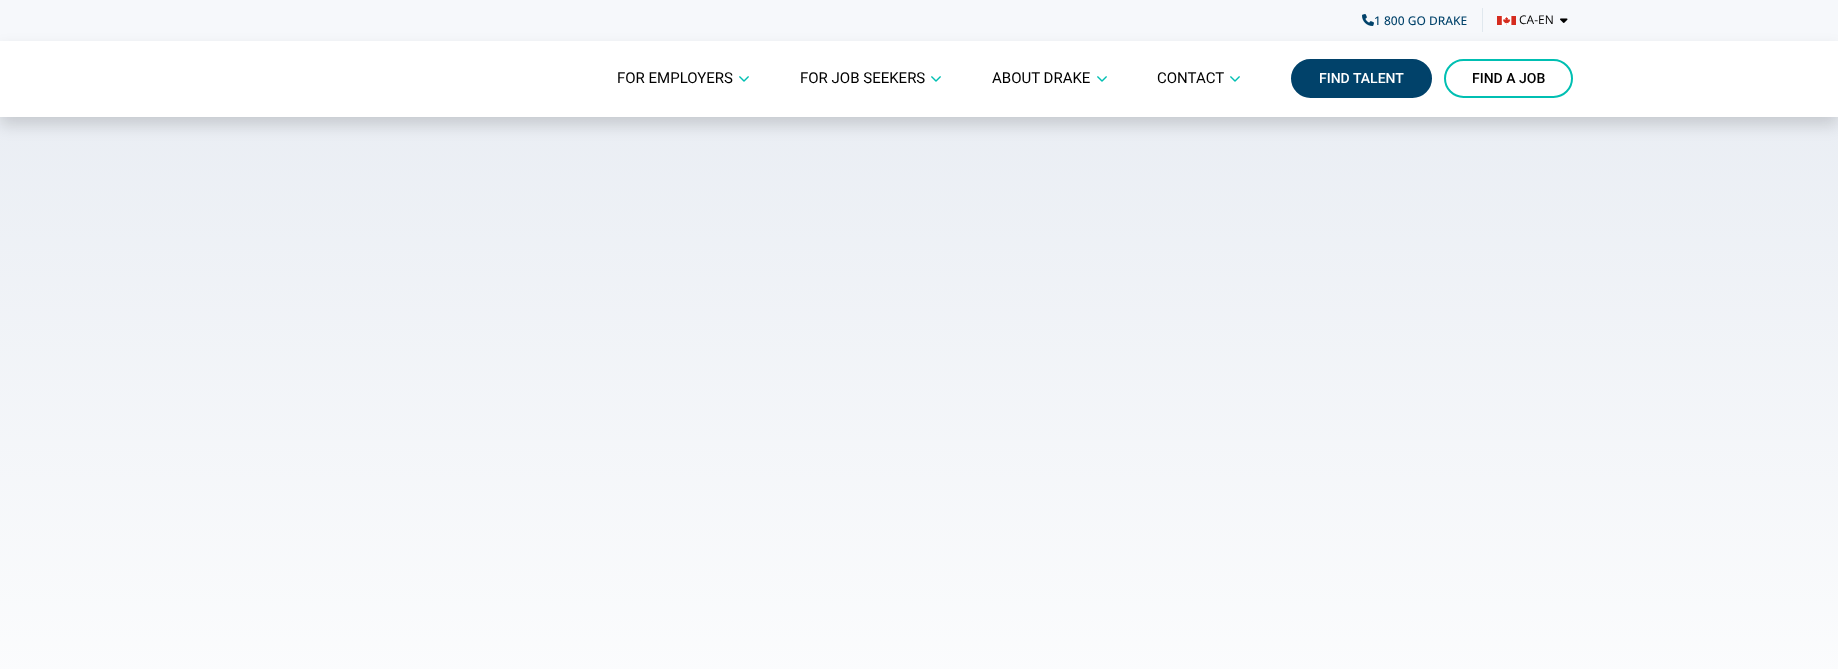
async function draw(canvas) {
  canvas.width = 1838;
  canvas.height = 669;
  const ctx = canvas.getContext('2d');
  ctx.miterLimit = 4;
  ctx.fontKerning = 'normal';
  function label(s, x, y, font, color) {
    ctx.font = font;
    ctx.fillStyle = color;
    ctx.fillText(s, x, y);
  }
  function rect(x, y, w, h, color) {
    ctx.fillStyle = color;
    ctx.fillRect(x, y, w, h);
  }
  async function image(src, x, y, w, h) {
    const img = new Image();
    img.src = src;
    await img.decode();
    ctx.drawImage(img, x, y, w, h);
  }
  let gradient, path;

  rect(0, 0, 1838, 669, '#fff');
  rect(0, 0, 1838, 41, '#f6f8fb');
  gradient = ctx.createLinearGradient(919, 117, 919, 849);
  gradient.addColorStop(0, '#eaeef4');
  gradient.addColorStop(0.94, '#fff');
  gradient.addColorStop(1, '#fff');
  ctx.fillStyle = gradient;
  ctx.fillRect(0, 117, 1838, 552);
  ctx.save();
  path = new Path2D('M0 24H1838V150H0ZM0 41H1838V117H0Z');
  ctx.clip(path, 'evenodd');
  ctx.fillStyle = '#00000026';
  ctx.filter = 'blur(8px)';
  ctx.beginPath();
  ctx.rect(0, 49, 1838, 76);
  ctx.fill();
  ctx.filter = 'none';
  ctx.restore();
  await image('assets/img1.png', 1362, 14, 12, 12);
  label('1 800 GO DRAKE', 1374, 25, '500 12px Open Sans', '#01426a');
  rect(1482, 8, 1, 24, '#e0e8ee');
  await image('assets/img2.png', 1497, 16, 19, 9);
  label('CA-EN', 1519, 24, '12px Open Sans', '#000');
  await image('assets/img3.png', 1560, 18, 8, 5);
  label('FOR EMPLOYERS', 617, 83, '15px Roboto', '#000');
  await image('assets/img4.png', 739, 76, 10, 6);
  label('FOR JOB SEEKERS', 800, 83, '15px Roboto', '#000');
  await image('assets/img4.png', 931, 76, 10, 6);
  label('ABOUT DRAKE', 992, 83, '15px Roboto', '#000');
  await image('assets/img4.png', 1097, 76, 10, 6);
  label('CONTACT', 1157, 83, '15px Roboto', '#000');
  await image('assets/img4.png', 1230, 76, 10, 6);
  ctx.fillStyle = '#01426a';
  ctx.beginPath();
  ctx.roundRect(1292, 60, 139, 37, 18.5);
  ctx.fill();
  ctx.strokeStyle = '#01426a';
  ctx.lineWidth = 2;
  ctx.stroke();
  label('FIND TALENT', 1319, 83, '500 14px Roboto', '#fff');
  ctx.beginPath();
  ctx.roundRect(1445, 60, 127, 37, 18.5);
  ctx.strokeStyle = '#00bfb2';
  ctx.stroke();
  label('FIND A JOB', 1472, 83, '500 14px Roboto', '#000');
}

draw(document.querySelector('canvas'));
